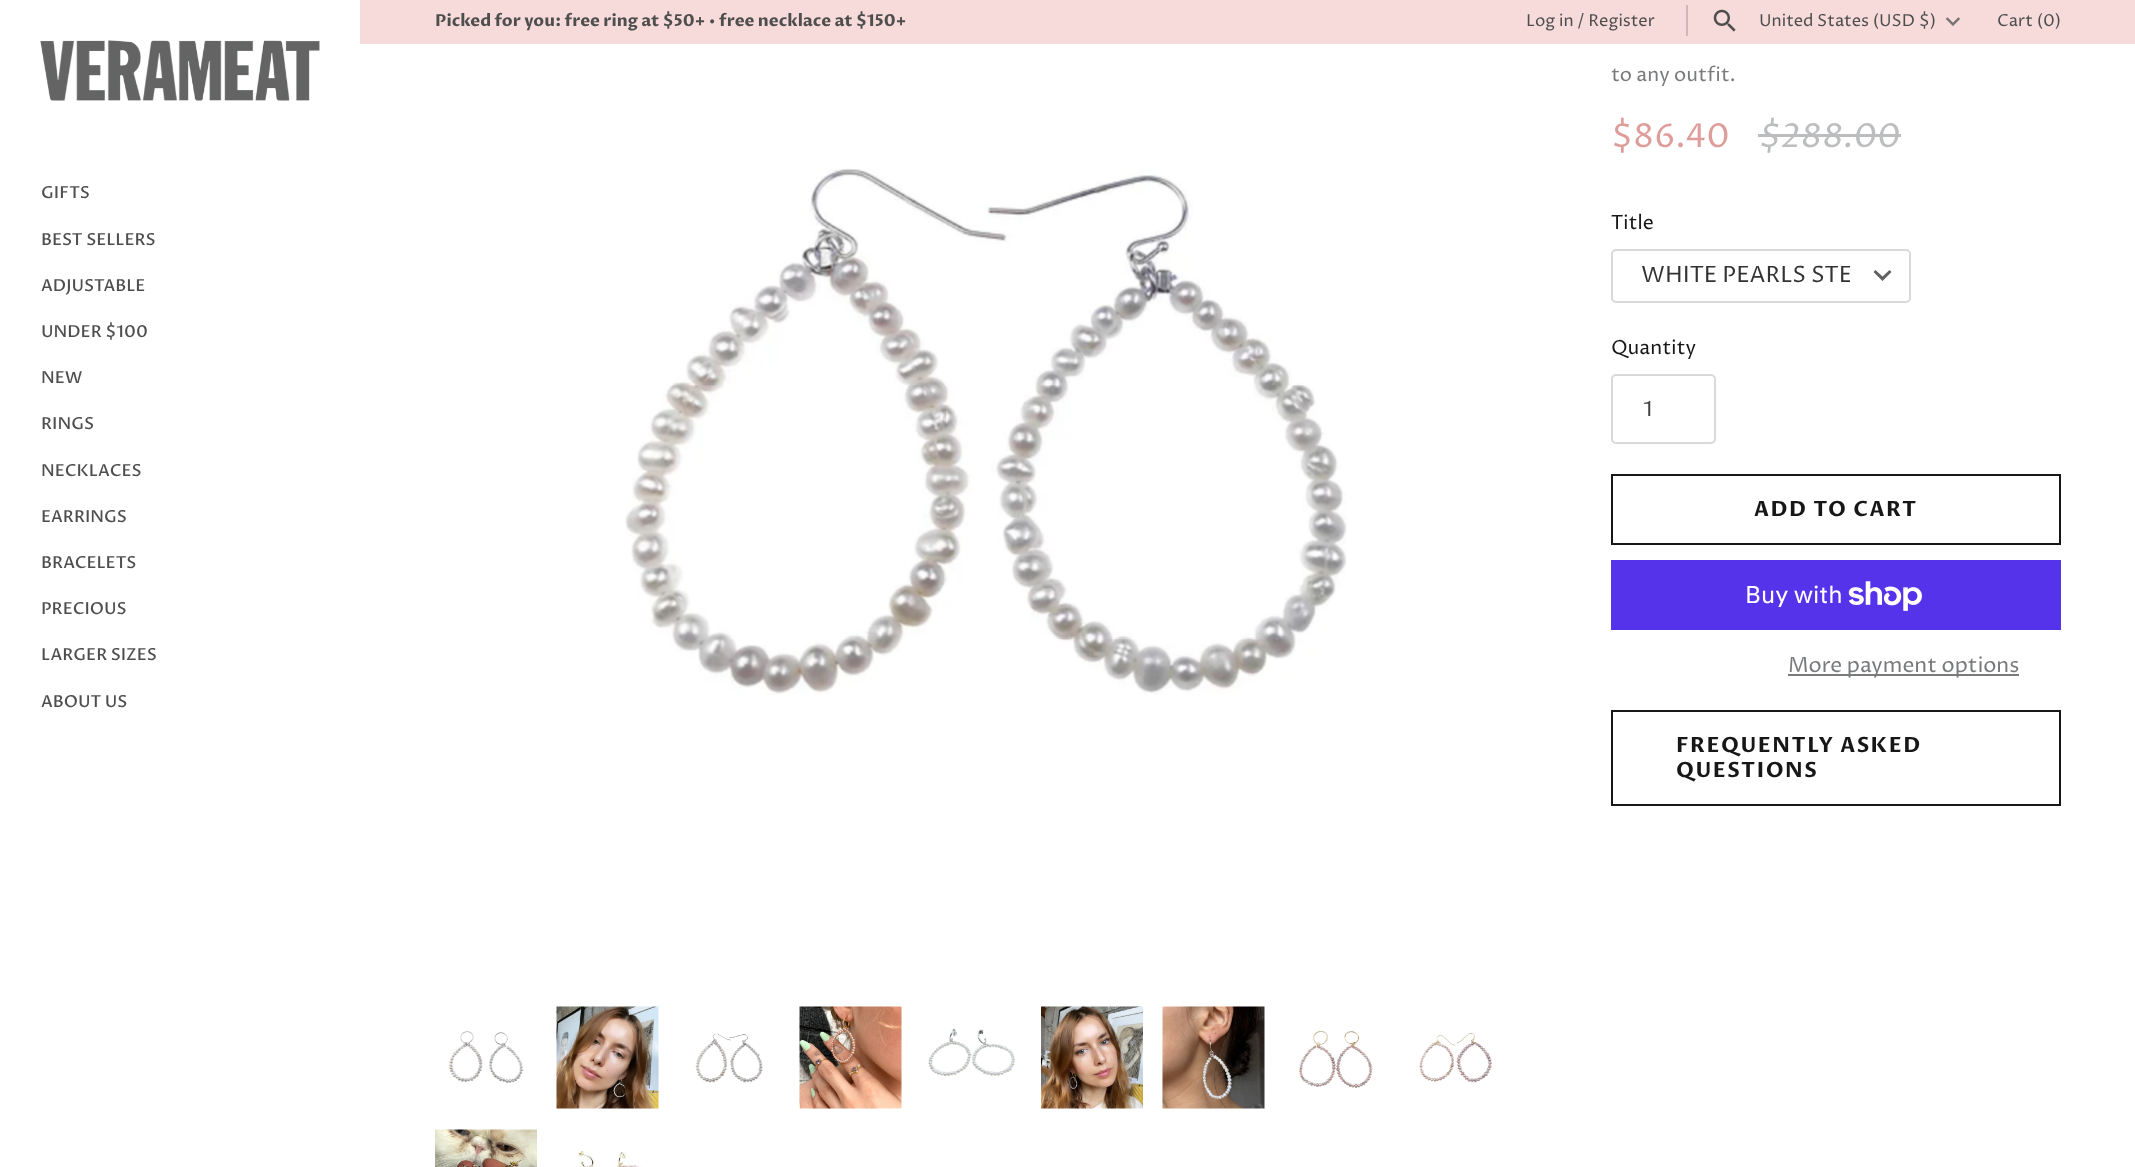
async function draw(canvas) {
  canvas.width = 2135;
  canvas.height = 1167;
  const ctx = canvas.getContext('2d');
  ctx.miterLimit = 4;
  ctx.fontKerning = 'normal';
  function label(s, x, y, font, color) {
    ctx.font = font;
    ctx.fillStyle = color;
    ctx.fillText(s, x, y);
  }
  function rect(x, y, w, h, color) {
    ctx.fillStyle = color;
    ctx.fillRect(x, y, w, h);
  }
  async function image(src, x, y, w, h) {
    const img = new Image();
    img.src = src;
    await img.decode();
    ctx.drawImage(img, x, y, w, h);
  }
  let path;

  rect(0, 0, 2135, 1167, '#fff');
  rect(360, 0, 1775, 44, '#f7dbda');
  label('Picked for you: free ring at $50+ • free necklace at $150+', 435, 26, 'bold 16.6px Proza Libre', '#4e4e4e');
  label('Log in / Register', 1526, 26, '16.6px Proza Libre', '#4e4e4e');
  rect(1686, 5, 2, 31, '#cdb8b7');
  await image('assets/img1.png', 1713, 9, 23, 23);
  label('United States (USD $)', 1759, 26, '16.6px Proza Libre', '#4e4e4e');
  await image('assets/img2.png', 1945, 17, 15, 9);
  label('Cart (0)', 1997, 26, '16.6px Proza Libre', '#4e4e4e');
  await image('assets/img3.png', 40, 40, 280, 61);
  label('GIFTS', 41, 198, '500 16.6px Proza Libre', '#4e4e4e');
  label('BEST SELLERS', 41, 245, '500 16.6px Proza Libre', '#4e4e4e');
  label('ADJUSTABLE', 41, 291, '500 16.6px Proza Libre', '#4e4e4e');
  label('UNDER $100', 41, 337, '500 16.6px Proza Libre', '#4e4e4e');
  label('NEW', 41, 383, '500 16.6px Proza Libre', '#4e4e4e');
  label('RINGS', 41, 429, '500 16.6px Proza Libre', '#4e4e4e');
  label('NECKLACES', 41, 476, '500 16.6px Proza Libre', '#4e4e4e');
  label('EARRINGS', 41, 522, '500 16.6px Proza Libre', '#4e4e4e');
  label('BRACELETS', 41, 568, '500 16.6px Proza Libre', '#4e4e4e');
  label('PRECIOUS', 41, 614, '500 16.6px Proza Libre', '#4e4e4e');
  label('LARGER SIZES', 41, 660, '500 16.6px Proza Libre', '#4e4e4e');
  label('ABOUT US', 41, 707, '500 16.6px Proza Libre', '#4e4e4e');
  await image('assets/img4.png', 625, 168, 722, 527);
  await image('assets/img5.png', 449, 1031, 75, 52);
  await image('assets/img6.png', 556, 1006, 103, 103);
  await image('assets/img7.png', 695, 1033, 68, 50);
  await image('assets/img8.png', 799, 1006, 103, 103);
  await image('assets/img9.png', 928, 1028, 87, 49);
  await image('assets/img10.png', 1041, 1006, 102, 103);
  await image('assets/img11.png', 1162, 1006, 103, 103);
  await image('assets/img12.png', 1299, 1031, 74, 57);
  await image('assets/img13.png', 1419, 1033, 73, 50);
  await image('assets/img14.png', 435, 1129, 102, 38);
  await image('assets/img15.png', 578, 1150, 65, 17);
  label('to any outfit.', 1611, 81, '19.5px Proza Libre', '#787a7c');
  label('$86.40', 1611, 147, '33px Proza Libre', '#de9d9a');
  label('$288.00', 1759, 147, 'italic 33px Proza Libre', '#bcbdbe');
  rect(1758, 134, 143, 3, '#bcbdbe');
  label('Title', 1611, 229, '19.5px Proza Libre', '#171717');
  ctx.fillStyle = '#616161';
  path = new Path2D('M1875.5 270L1882.5 276.5L1889.5 270L1891.5 272L1882.5 281L1873.5 272Z');
  ctx.fill(path);
  ctx.beginPath();
  ctx.roundRect(1612, 250, 298, 52, 4);
  ctx.strokeStyle = '#d9d9d9';
  ctx.lineWidth = 2;
  ctx.stroke();
  ctx.save();
  ctx.beginPath();
  ctx.rect(1641, 263, 209, 27);
  ctx.clip();
  label('WHITE PEARLS STE', 1641, 282, '22.5px Proza Libre', '#333');
  ctx.restore();
  label('Quantity', 1611, 354, '19.5px Proza Libre', '#171717');
  ctx.beginPath();
  ctx.roundRect(1612, 375, 103, 68, 4);
  ctx.stroke();
  label('1', 1643, 416, '21px Proza Libre', '#444');
  ctx.strokeStyle = '#171717';
  ctx.strokeRect(1612, 475, 448, 69);
  ctx.letterSpacing = '1.5px';
  label('ADD TO CART', 1754, 516, 'bold 21px Proza Libre', '#171717');
  rect(1611, 560, 450, 70, '#5433eb');
  ctx.letterSpacing = '0px';
  label('Buy with', 1745, 603, '24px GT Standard', '#fff');
  await image('assets/img16.png', 1848, 581, 74, 30);
  rect(1788, 674, 231, 2, '#787a7c');
  label('More payment options', 1788, 672, '21px Proza Libre', '#787a7c');
  ctx.strokeRect(1612, 711, 448, 94);
  ctx.letterSpacing = '1.5px';
  label('FREQUENTLY ASKED', 1676, 752, 'bold 21px Proza Libre', '#171717');
  label('QUESTIONS', 1676, 777, 'bold 21px Proza Libre', '#171717');
}

draw(document.querySelector('canvas'));
